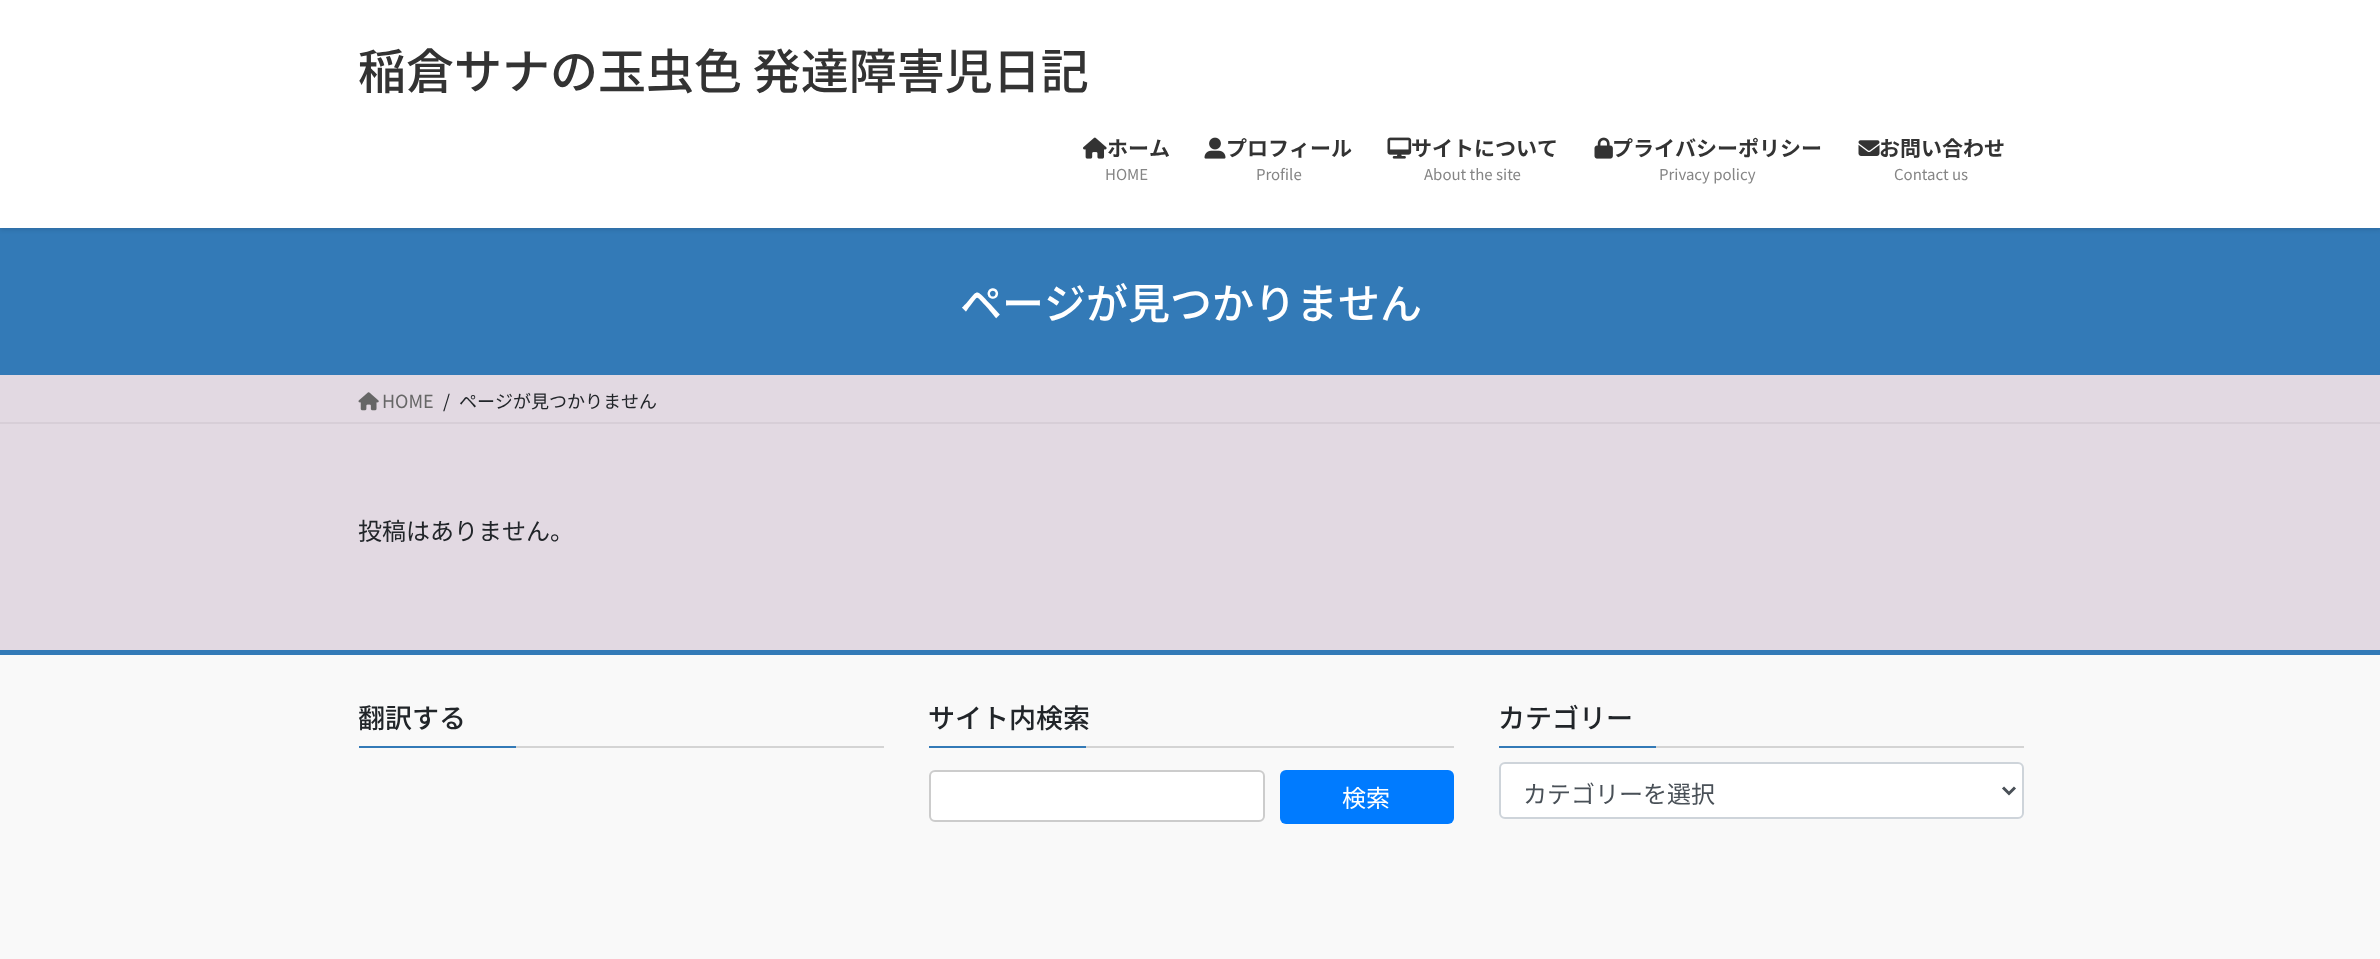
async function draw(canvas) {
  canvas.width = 2380;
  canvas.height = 959;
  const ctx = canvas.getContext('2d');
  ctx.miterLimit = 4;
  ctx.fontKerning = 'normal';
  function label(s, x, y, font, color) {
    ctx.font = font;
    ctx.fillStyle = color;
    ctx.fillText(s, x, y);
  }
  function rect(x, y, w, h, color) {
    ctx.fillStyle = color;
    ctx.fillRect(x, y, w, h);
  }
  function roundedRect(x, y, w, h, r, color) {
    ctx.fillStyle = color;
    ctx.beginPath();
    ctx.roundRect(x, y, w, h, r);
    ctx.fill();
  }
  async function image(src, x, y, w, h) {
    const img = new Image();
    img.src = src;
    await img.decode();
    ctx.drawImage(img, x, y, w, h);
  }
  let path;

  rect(0, 0, 2380, 959, '#e2d9e2');
  rect(0, 228, 2380, 147, '#337ab7');
  ctx.fillStyle = '#0000001a';
  ctx.filter = 'blur(2px)';
  ctx.beginPath();
  ctx.rect(0, 2, 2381, 228);
  ctx.fill();
  ctx.filter = 'none';
  rect(0, 0, 2380, 228, '#fff');
  label('稲倉サナの玉虫色 発達障害児日記', 358, 89, '500 48px Noto Sans JP', '#333');
  await image('assets/img1.png', 1083, 137, 24, 22);
  label('ホーム', 1107, 156, 'bold 21px Noto Sans JP', '#333');
  label('HOME', 1105, 180, '15px Noto Sans JP', '#858585');
  await image('assets/img2.png', 1204, 137, 22, 22);
  label('プロフィール', 1226, 156, 'bold 21px Noto Sans JP', '#333');
  label('Profile', 1256, 180, '15px Noto Sans JP', '#858585');
  await image('assets/img3.png', 1387, 137, 25, 22);
  label('サイトについて', 1411, 156, 'bold 21px Noto Sans JP', '#333');
  label('About the site', 1424, 180, '15px Noto Sans JP', '#858585');
  await image('assets/img4.png', 1594, 137, 19, 22);
  label('プライバシーポリシー', 1612, 156, 'bold 21px Noto Sans JP', '#333');
  label('Privacy policy', 1659, 180, '15px Noto Sans JP', '#858585');
  await image('assets/img5.png', 1858, 140, 22, 16);
  label('お問い合わせ', 1879, 156, 'bold 21px Noto Sans JP', '#333');
  label('Contact us', 1894, 180, '15px Noto Sans JP', '#858585');
  label('ページが見つかりません', 960, 319, '500 42px Noto Sans JP', '#fff');
  rect(0, 422, 2380, 2, '#d7ced7');
  await image('assets/img6.png', 358, 392, 21, 19);
  label('HOME', 382, 408, '18px Noto Sans JP', '#666');
  label('/', 443, 408, '18px Noto Sans JP', '#212529');
  label('ページが見つかりません', 459, 408, '18px Noto Sans JP', '#212529');
  label('投稿はありません。', 358, 540, '24px Noto Sans JP', '#212529');
  rect(0, 655, 2380, 304, '#f9f9f9');
  rect(0, 650, 2380, 5, '#337ab7');
  rect(516, 746, 368, 2, '#d4d4d4');
  label('翻訳する', 358, 728, '500 27px Noto Sans JP', '#212529');
  rect(359, 746, 157, 2, '#337ab7');
  rect(1086, 746, 368, 2, '#d4d4d4');
  label('サイト内検索', 928, 728, '500 27px Noto Sans JP', '#212529');
  rect(929, 746, 157, 2, '#337ab7');
  ctx.fillStyle = '#fff';
  ctx.beginPath();
  ctx.roundRect(930, 771, 334, 50, 5);
  ctx.fill();
  ctx.strokeStyle = '#ccc';
  ctx.lineWidth = 2;
  ctx.stroke();
  roundedRect(1280, 770, 174, 54, 6, '#007bff');
  label('検索', 1342, 807, '24px Noto Sans JP', '#fff');
  rect(1656, 746, 368, 2, '#d4d4d4');
  label('カテゴリー', 1498, 728, '500 27px Noto Sans JP', '#212529');
  rect(1499, 746, 157, 2, '#337ab7');
  ctx.fillStyle = '#fff';
  ctx.beginPath();
  ctx.roundRect(1500, 763, 523, 55, 5);
  ctx.fill();
  ctx.strokeStyle = '#ced4da';
  ctx.stroke();
  path = new Path2D('M2003 787.5L2009 793.5L2015 787.5');
  ctx.strokeStyle = '#495057';
  ctx.lineWidth = 3;
  ctx.stroke(path);
  label('カテゴリーを選択', 1523, 803, '24px Noto Sans JP', '#495057');
}

draw(document.querySelector('canvas'));
